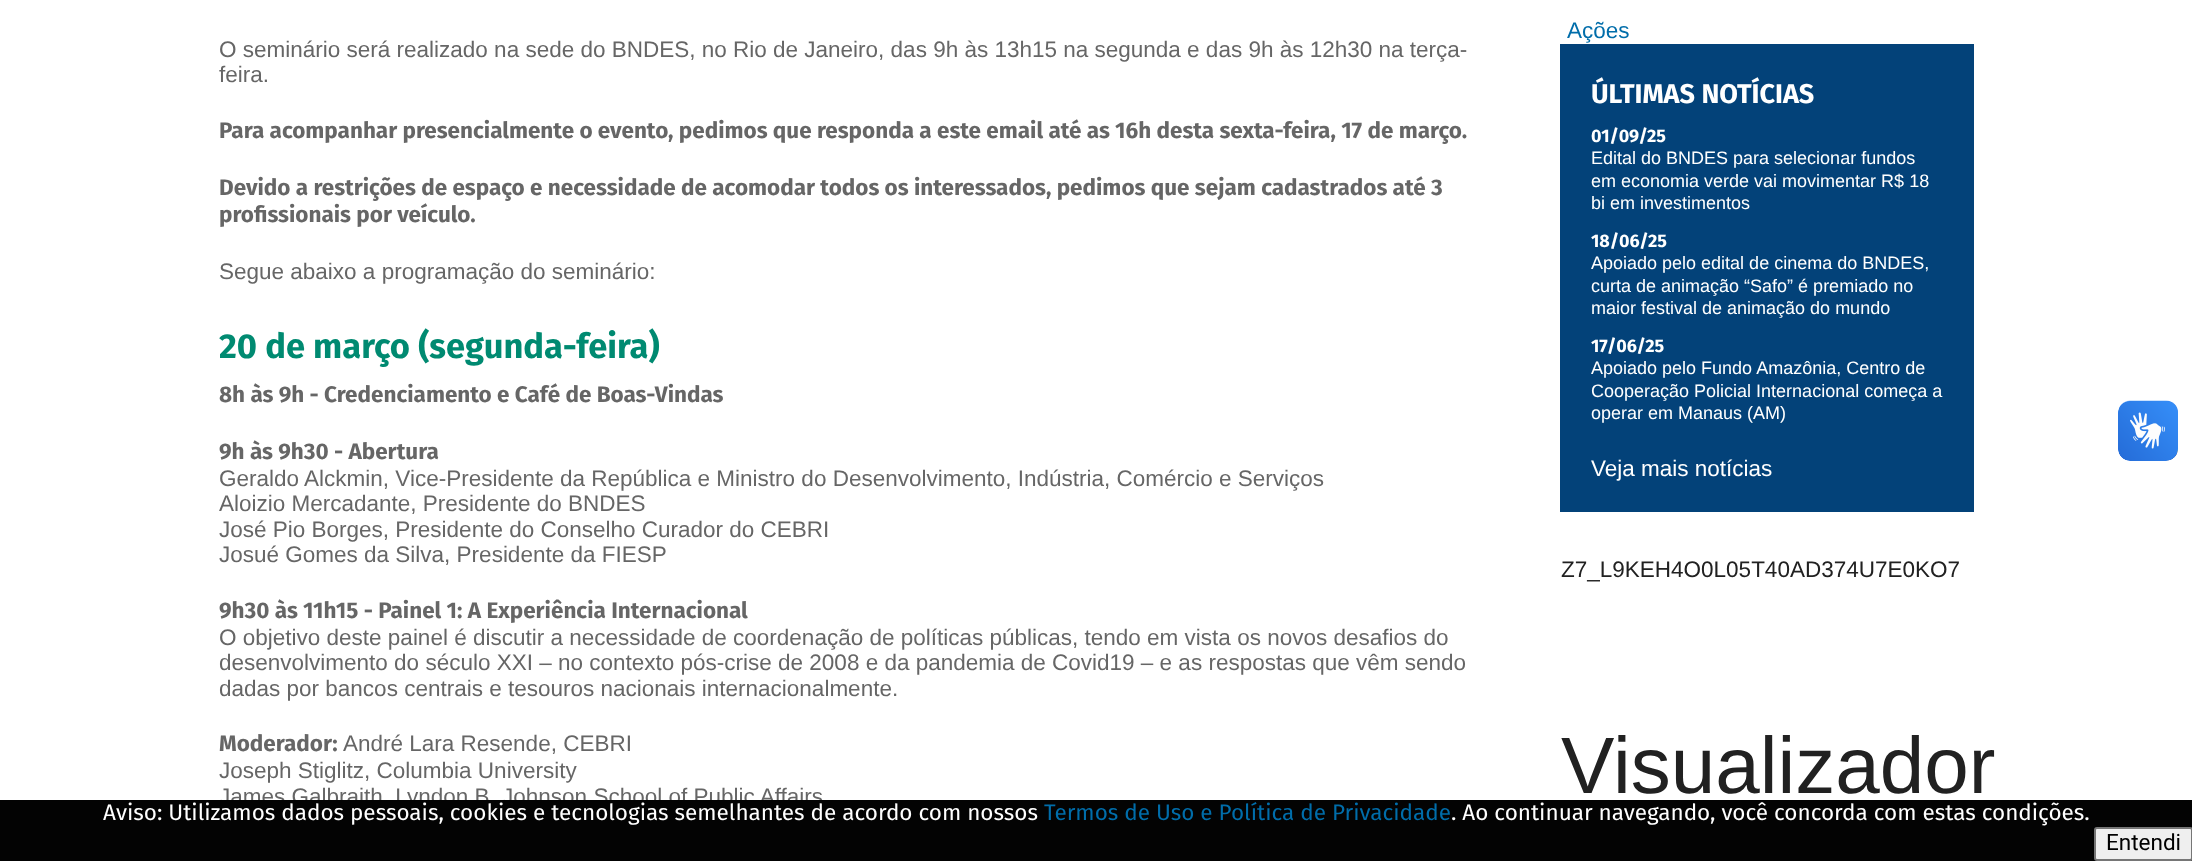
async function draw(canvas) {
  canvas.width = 2192;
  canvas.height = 861;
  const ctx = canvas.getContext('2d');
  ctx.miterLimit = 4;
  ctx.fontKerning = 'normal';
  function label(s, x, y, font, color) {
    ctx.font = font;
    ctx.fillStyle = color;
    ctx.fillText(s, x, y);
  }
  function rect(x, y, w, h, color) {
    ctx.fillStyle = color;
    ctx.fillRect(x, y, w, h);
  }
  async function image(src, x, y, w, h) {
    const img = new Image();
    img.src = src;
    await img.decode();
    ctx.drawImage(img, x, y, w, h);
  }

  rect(0, 0, 2192, 861, '#fff');
  label('O seminário será realizado na sede do BNDES, no Rio de Janeiro, das 9h às 13h15 na segunda e das 9h às 12h30 na terça-', 219, 57, '22.5px Liberation Sans', '#666');
  label('feira.', 219, 82, '22.5px Liberation Sans', '#666');
  label('Para acompanhar presencialmente o evento, pedimos que responda a este email até as 16h desta sexta-feira, 17 de março.', 219, 138, 'bold 22.5px Fira Sans', '#666');
  label('Devido a restrições de espaço e necessidade de acomodar todos os interessados, pedimos que sejam cadastrados até 3', 219, 195, 'bold 22.5px Fira Sans', '#666');
  label('profissionais por veículo.', 219, 222, 'bold 22.5px Fira Sans', '#666');
  label('Segue abaixo a programação do seminário:', 219, 279, '22.5px Liberation Sans', '#666');
  label('20 de março (segunda-feira)', 219, 358, 'bold 34.5px Fira Sans', '#008a71');
  label('8h às 9h - Credenciamento e Café de Boas-Vindas', 219, 402, 'bold 22.5px Fira Sans', '#666');
  label('9h às 9h30 - Abertura', 219, 459, 'bold 22.5px Fira Sans', '#666');
  label('Geraldo Alckmin, Vice-Presidente da República e Ministro do Desenvolvimento, Indústria, Comércio e Serviços', 219, 486, '22.5px Liberation Sans', '#666');
  label('Aloizio Mercadante, Presidente do BNDES', 219, 511, '22.5px Liberation Sans', '#666');
  label('José Pio Borges, Presidente do Conselho Curador do CEBRI', 219, 537, '22.5px Liberation Sans', '#666');
  label('Josué Gomes da Silva, Presidente da FIESP', 219, 562, '22.5px Liberation Sans', '#666');
  label('9h30 às 11h15 - Painel 1: A Experiência Internacional', 219, 618, 'bold 22.5px Fira Sans', '#666');
  label('O objetivo deste painel é discutir a necessidade de coordenação de políticas públicas, tendo em vista os novos desafios do', 219, 645, '22.5px Liberation Sans', '#666');
  label('desenvolvimento do século XXI – no contexto pós-crise de 2008 e da pandemia de Covid19 – e as respostas que vêm sendo', 219, 670, '22.5px Liberation Sans', '#666');
  label('dadas por bancos centrais e tesouros nacionais internacionalmente.', 219, 696, '22.5px Liberation Sans', '#666');
  label('Moderador:', 219, 751, 'bold 22.5px Fira Sans', '#666');
  label('André Lara Resende, CEBRI', 343, 751, '22.5px Liberation Sans', '#666');
  label('Joseph Stiglitz, Columbia University', 219, 778, '22.5px Liberation Sans', '#666');
  label('James Galbraith, Lyndon B. Johnson School of Public Affairs', 219, 804, '22.5px Liberation Sans', '#666');
  label('Ações', 1567, 38, '22.5px Liberation Sans', '#006daa');
  rect(1560, 44, 414, 468, '#034279');
  label('ÚLTIMAS NOTÍCIAS', 1591, 103, 'bold 27px Fira Sans', '#fff');
  label('01/09/25', 1591, 142, 'bold 18px Fira Sans', '#fff');
  label('Edital do BNDES para selecionar fundos', 1591, 164, '18px Liberation Sans', '#fff');
  label('em economia verde vai movimentar R$ 18', 1591, 187, '18px Liberation Sans', '#fff');
  label('bi em investimentos', 1591, 209, '18px Liberation Sans', '#fff');
  label('18/06/25', 1591, 247, 'bold 18px Fira Sans', '#fff');
  label('Apoiado pelo edital de cinema do BNDES,', 1591, 269, '18px Liberation Sans', '#fff');
  label('curta de animação “Safo” é premiado no', 1591, 292, '18px Liberation Sans', '#fff');
  label('maior festival de animação do mundo', 1591, 314, '18px Liberation Sans', '#fff');
  label('17/06/25', 1591, 352, 'bold 18px Fira Sans', '#fff');
  label('Apoiado pelo Fundo Amazônia, Centro de', 1591, 374, '18px Liberation Sans', '#fff');
  label('Cooperação Policial Internacional começa a', 1591, 397, '18px Liberation Sans', '#fff');
  label('operar em Manaus (AM)', 1591, 419, '18px Liberation Sans', '#fff');
  label('Veja mais notícias', 1591, 476, '22.5px Liberation Sans', '#fff');
  label('Z7_L9KEH4O0L05T40AD374U7E0KO7', 1561, 577, '22.5px Liberation Sans', '#212121');
  label('Visualizador', 1561, 793, '80px Liberation Sans', '#212121');
  await image('assets/img1.png', 2118, 400, 60, 61);
  await image('assets/img2.png', 2118, 401, 60, 60);
  rect(0, 800, 2192, 61, '#030303');
  label('Aviso: Utilizamos dados pessoais, cookies e tecnologias semelhantes de acordo com nossos', 103, 820, '22.5px Fira Sans', '#fff');
  label('Termos de Uso e Política de Privacidade', 1044, 820, '22.5px Fira Sans', '#006daa');
  label('. Ao continuar navegando, você concorda com estas condições.', 1451, 820, '22.5px Fira Sans', '#fff');
  ctx.fillStyle = '#efefef';
  ctx.beginPath();
  ctx.roundRect(2095, 828, 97, 32, 2);
  ctx.fill();
  ctx.strokeStyle = '#767676';
  ctx.lineWidth = 2;
  ctx.stroke();
  label('Entendi', 2106, 850, '22.5px Roboto', '#000');
}

draw(document.querySelector('canvas'));
